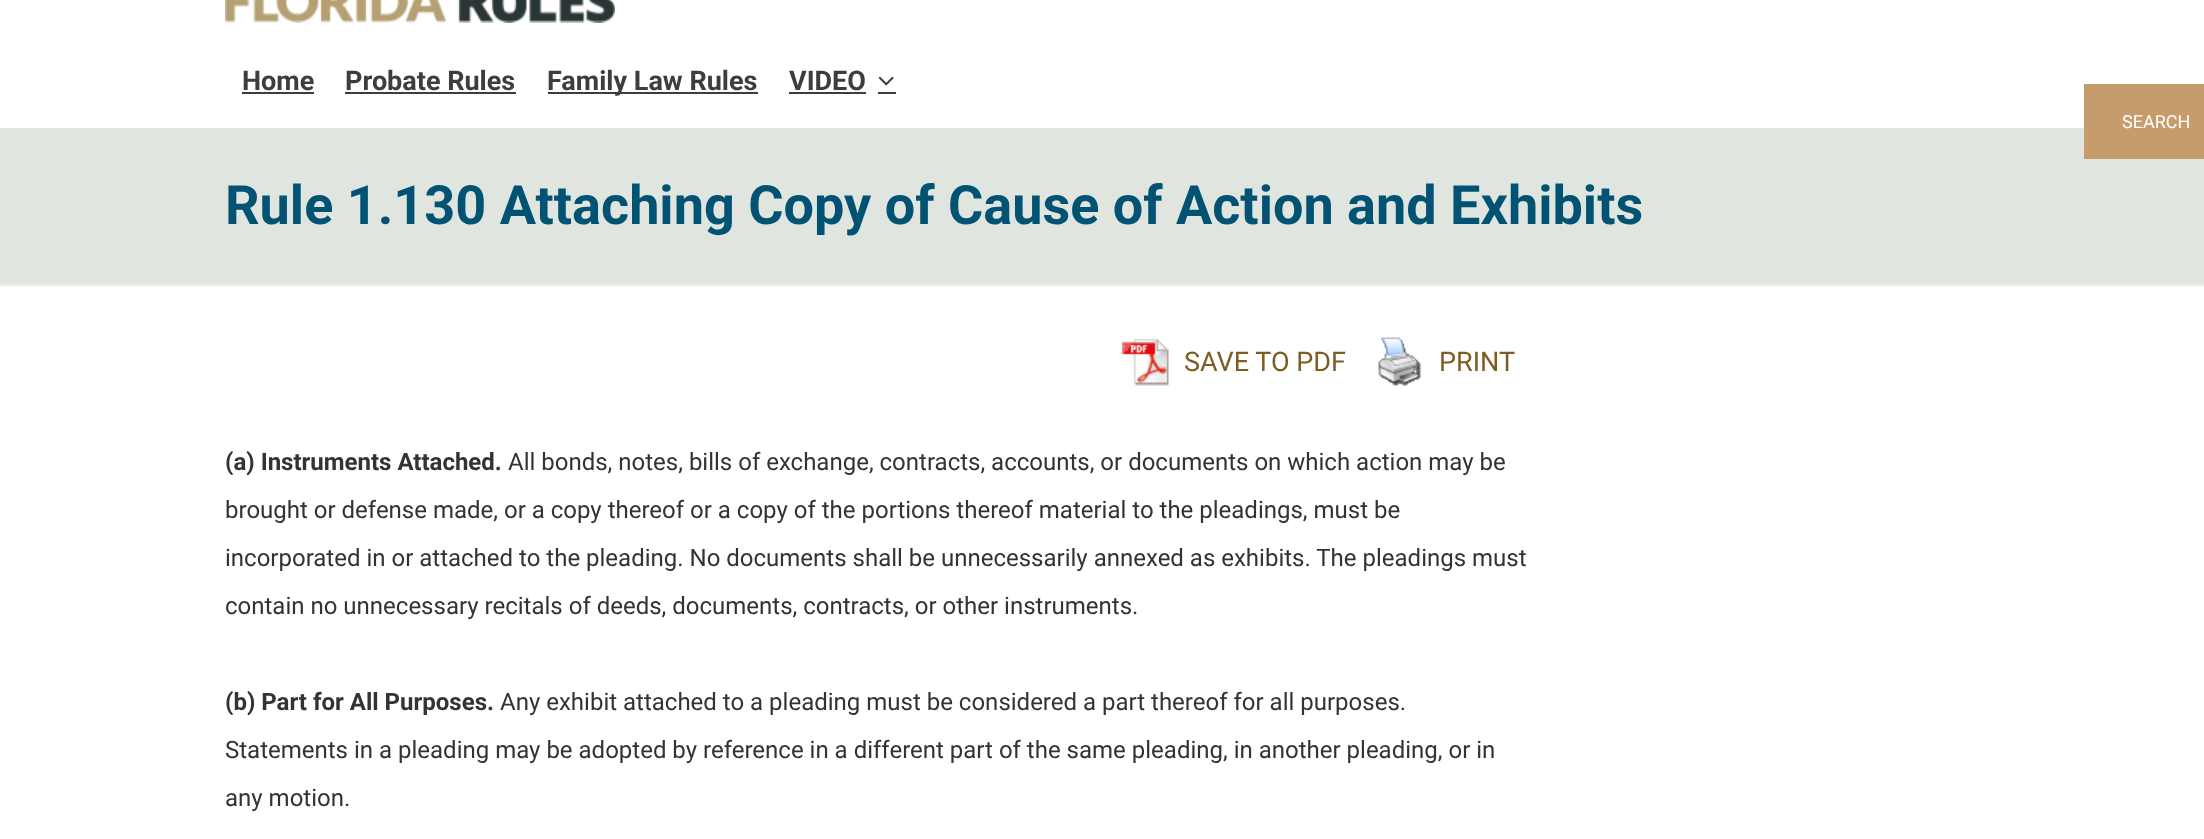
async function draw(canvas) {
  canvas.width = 2204;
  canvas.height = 839;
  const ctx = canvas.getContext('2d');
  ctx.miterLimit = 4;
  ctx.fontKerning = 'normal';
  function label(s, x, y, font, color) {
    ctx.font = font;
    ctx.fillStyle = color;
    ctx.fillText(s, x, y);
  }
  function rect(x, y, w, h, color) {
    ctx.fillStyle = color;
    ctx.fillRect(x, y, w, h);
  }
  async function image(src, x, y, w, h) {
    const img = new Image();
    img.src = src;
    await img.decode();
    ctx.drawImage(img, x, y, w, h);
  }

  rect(0, 0, 2204, 839, '#fff');
  await image('assets/img1.png', 225, 0, 390, 23);
  label('Home', 242, 90, 'bold 27px Roboto', '#3d3d3d');
  rect(242, 92, 72, 2, '#3d3d3d');
  label('Probate Rules', 345, 90, 'bold 27px Roboto', '#3d3d3d');
  rect(345, 92, 171, 2, '#3d3d3d');
  rect(548, 92, 210, 2, '#3d3d3d');
  label('Family Law Rules', 547, 90, 'bold 27px Roboto', '#3d3d3d');
  label('VIDEO', 789, 90, 'bold 27px Roboto', '#3d3d3d');
  rect(789, 92, 77, 2, '#3d3d3d');
  rect(878, 92, 18, 2, '#3d3d3d');
  await image('assets/img2.png', 878, 76, 16, 10);
  rect(0, 128, 2204, 156, '#e0e6df');
  rect(0, 284, 2204, 2, '#ebebeb');
  label('Rule 1.130 Attaching Copy of Cause of Action and Exhibits', 225, 224, 'bold 54px Roboto', '#025274');
  await image('assets/img3.png', 1121, 338, 48, 48);
  label('SAVE TO PDF', 1184, 371, '27px Roboto', '#7d5d22');
  await image('assets/img4.png', 1378, 337, 43, 49);
  label('PRINT', 1439, 371, '27px Roboto', '#7d5d22');
  label('(a) Instruments Attached.', 225, 470, 'bold 24px Roboto', '#333');
  label('All bonds, notes, bills of exchange, contracts, accounts, or documents on which action may be', 508, 470, '24px Roboto', '#333');
  label('brought or defense made, or a copy thereof or a copy of the portions thereof material to the pleadings, must be', 225, 518, '24px Roboto', '#333');
  label('incorporated in or attached to the pleading. No documents shall be unnecessarily annexed as exhibits. The pleadings must', 225, 566, '24px Roboto', '#333');
  label('contain no unnecessary recitals of deeds, documents, contracts, or other instruments.', 225, 614, '24px Roboto', '#333');
  label('(b) Part for All Purposes.', 225, 710, 'bold 24px Roboto', '#333');
  label('Any exhibit attached to a pleading must be considered a part thereof for all purposes.', 500, 710, '24px Roboto', '#333');
  label('Statements in a pleading may be adopted by reference in a different part of the same pleading, in another pleading, or in', 225, 758, '24px Roboto', '#333');
  label('any motion.', 225, 806, '24px Roboto', '#333');
  rect(2084, 84, 120, 75, '#c69c6d');
  label('SEARCH', 2122, 128, '18px Roboto', '#fff');
}

draw(document.querySelector('canvas'));
